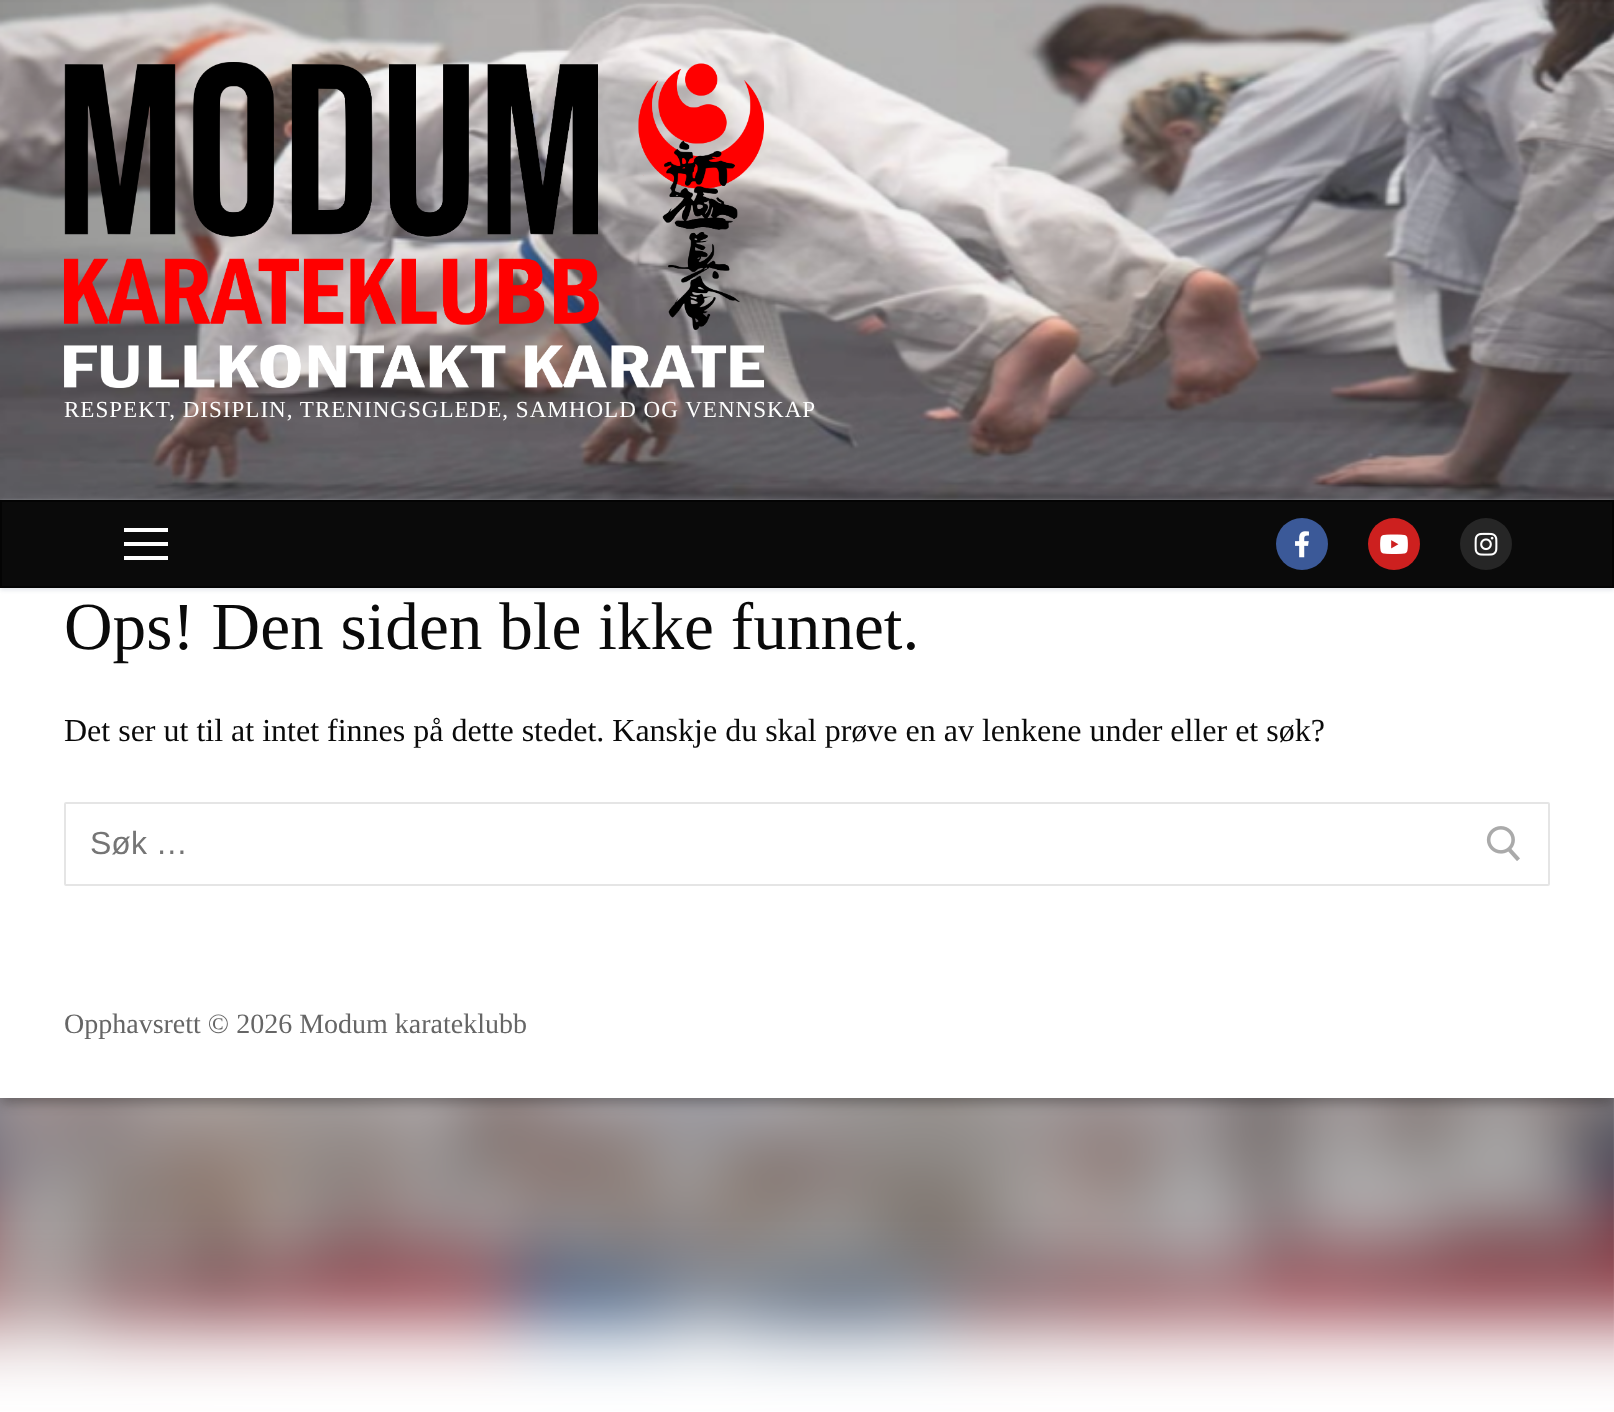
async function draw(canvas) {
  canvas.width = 1614;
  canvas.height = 1412;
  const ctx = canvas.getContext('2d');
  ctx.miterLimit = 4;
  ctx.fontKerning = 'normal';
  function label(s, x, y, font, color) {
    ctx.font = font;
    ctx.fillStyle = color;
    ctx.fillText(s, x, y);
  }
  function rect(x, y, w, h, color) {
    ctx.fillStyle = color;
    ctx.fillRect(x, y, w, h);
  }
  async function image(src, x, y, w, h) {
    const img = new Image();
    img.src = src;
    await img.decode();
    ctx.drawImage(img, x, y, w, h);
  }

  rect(0, 0, 1614, 1412, '#fff');
  await image('assets/img1.png', 0, 1098, 1614, 314);
  ctx.fillStyle = '#0000003b';
  ctx.filter = 'blur(6px)';
  ctx.beginPath();
  ctx.rect(0, 6, 1614, 1098);
  ctx.fill();
  ctx.filter = 'none';
  ctx.fillStyle = '#00000029';
  ctx.filter = 'blur(6px)';
  ctx.beginPath();
  ctx.rect(8, 14, 1598, 1082);
  ctx.fill();
  ctx.filter = 'none';
  await image('assets/img2.png', 0, 0, 1614, 500);
  await image('assets/img3.png', 64, 62, 700, 326);
  ctx.letterSpacing = '1px';
  label('RESPEKT, DISIPLIN, TRENINGSGLEDE, SAMHOLD OG VENNSKAP', 64, 417, '23.05px Liberation Serif', '#fdfdfd');
  rect(0, 588, 1614, 510, '#fff');
  ctx.fillStyle = '#e1e5ea';
  ctx.filter = 'blur(2px)';
  ctx.beginPath();
  ctx.rect(0, 502, 1614, 88);
  ctx.fill();
  ctx.filter = 'none';
  ctx.fillStyle = '#0a0a0a';
  ctx.beginPath();
  ctx.rect(1, 501, 1612, 86);
  ctx.fill();
  ctx.strokeStyle = '#040404';
  ctx.lineWidth = 2;
  ctx.stroke();
  rect(124, 542, 44, 4, '#fff');
  rect(124, 528, 44, 4, '#fff');
  rect(124, 556, 44, 4, '#fff');
  ctx.fillStyle = '#3b5998';
  ctx.beginPath();
  ctx.arc(1302, 544, 26, 0, 2 * Math.PI);
  ctx.fill();
  await image('assets/img4.png', 1295, 531, 14, 27);
  ctx.fillStyle = '#cd201f';
  ctx.beginPath();
  ctx.arc(1394, 544, 26, 0, 2 * Math.PI);
  ctx.fill();
  await image('assets/img5.png', 1380, 534, 28, 20);
  ctx.fillStyle = '#262626';
  ctx.beginPath();
  ctx.arc(1486, 544, 26, 0, 2 * Math.PI);
  ctx.fill();
  await image('assets/img6.png', 1474, 532, 24, 24);
  ctx.letterSpacing = '0px';
  label('Ops! Den siden ble ikke funnet.', 64, 649, '67.25px Liberation Serif', '#0a0a0a');
  label('Det ser ut til at intet finnes på dette stedet. Kanskje du skal prøve en av lenkene under eller et søk?', 64, 741, '32px Liberation Serif', '#0a0a0a');
  ctx.beginPath();
  ctx.roundRect(65, 803, 1484, 82, 1);
  ctx.strokeStyle = '#e5e5e5';
  ctx.stroke();
  label('Søk …', 90, 854, '32px Liberation Sans', '#757575');
  await image('assets/img7.png', 1486, 826, 34, 35);
  label('Opphavsrett © 2026 Modum karateklubb', 64, 1033, '28px Liberation Serif', '#666');
}

draw(document.querySelector('canvas'));
